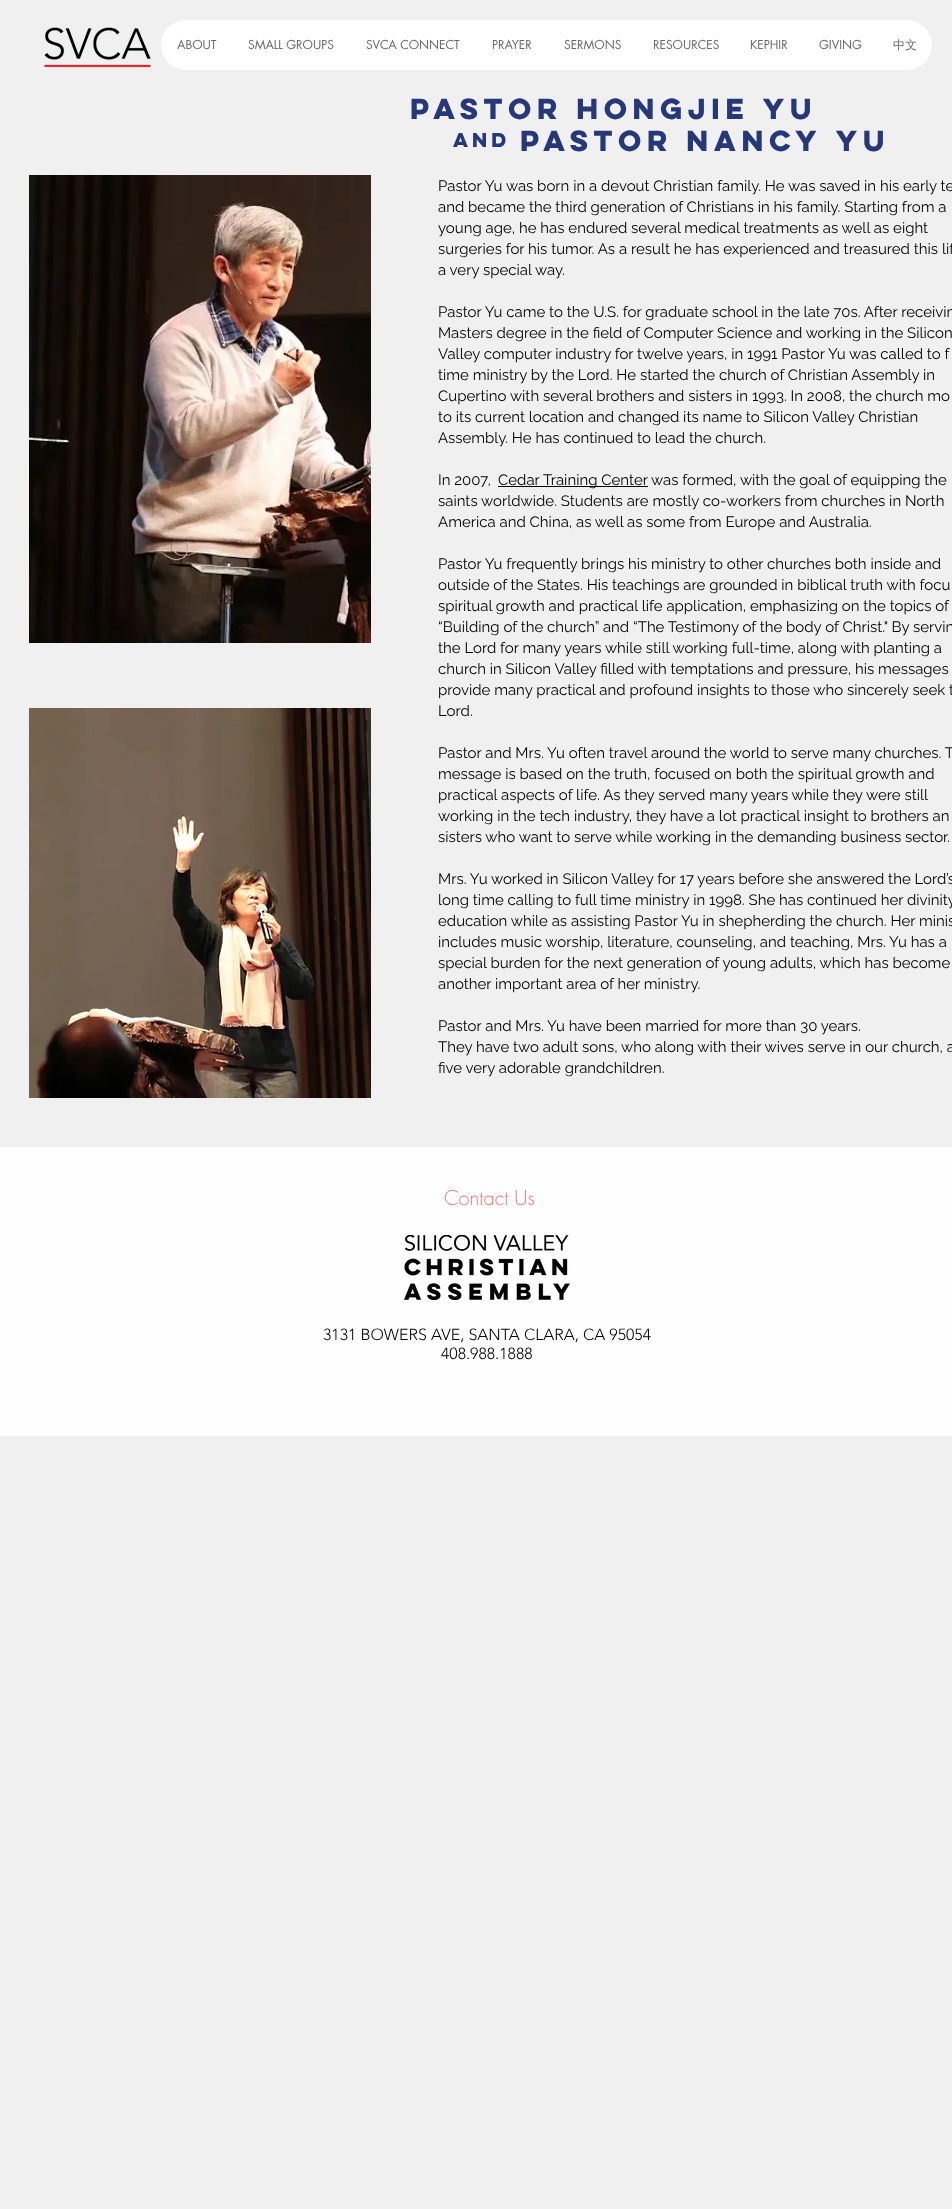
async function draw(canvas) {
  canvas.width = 952;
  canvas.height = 2209;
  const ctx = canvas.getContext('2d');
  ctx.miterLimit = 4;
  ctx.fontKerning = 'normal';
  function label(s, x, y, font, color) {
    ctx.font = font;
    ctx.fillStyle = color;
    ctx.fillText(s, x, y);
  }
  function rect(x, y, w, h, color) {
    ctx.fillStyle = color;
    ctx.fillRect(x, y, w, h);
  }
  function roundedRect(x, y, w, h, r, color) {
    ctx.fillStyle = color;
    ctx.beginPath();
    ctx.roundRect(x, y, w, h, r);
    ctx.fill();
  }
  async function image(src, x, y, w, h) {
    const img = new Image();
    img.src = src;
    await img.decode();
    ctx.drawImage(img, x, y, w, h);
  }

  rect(0, 0, 952, 2209, '#f0f0f0');
  await image('assets/img1.png', 44, 27, 107, 41);
  roundedRect(161, 20, 771, 50, 25, '#fff');
  label('ABOUT', 177, 49, '12px futura', '#696969');
  label('SMALL GROUPS', 248, 49, '12px futura', '#696969');
  label('SVCA CONNECT', 366, 49, '12px futura', '#696969');
  label('PRAYER', 492, 49, '12px futura', '#696969');
  label('SERMONS', 564, 49, '12px futura', '#696969');
  label('RESOURCES', 653, 49, '12px futura', '#696969');
  label('KEPHIR', 750, 49, '12px futura', '#696969');
  label('GIVING', 819, 49, '12px futura', '#696969');
  label('中文', 893, 49, '500 12px WenQuanYi Zen Hei', '#696969');
  label('PASTOR Hongjie YU', 410, 119, 'bold 26px "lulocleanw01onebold"', '#273878');
  label('AND', 453, 147, 'bold 18px "lulocleanw01onebold"', '#273878');
  label('PASTOR nANCY YU', 520, 151, 'bold 26px "lulocleanw01onebold"', '#273878');
  await image('assets/img2.png', 29, 175, 342, 468);
  label('Pastor Yu was born in a devout Christian family. He was saved in his early te', 438, 191, '15px Raleway', '#000');
  label('and became the third generation of Christians in his family. Starting from a', 438, 212, '15px Raleway', '#000');
  label('young age, he has endured several medical treatments as well as eight', 438, 233, '15px Raleway', '#000');
  label('surgeries for his tumor. As a result he has experienced and treasured this lif', 438, 254, '15px Raleway', '#000');
  label('a very special way.', 438, 275, '15px Raleway', '#000');
  label('Pastor Yu came to the U.S. for graduate school in the late 70s. After receivin', 438, 317, '15px Raleway', '#000');
  label('Masters degree in the field of Computer Science and working in the Silicon', 438, 338, '15px Raleway', '#000');
  label('Valley computer industry for twelve years, in 1991 Pastor Yu was called to f', 438, 359, '15px Raleway', '#000');
  label('time ministry by the Lord. He started the church of Christian Assembly in', 438, 380, '15px Raleway', '#000');
  label('Cupertino with several brothers and sisters in 1993. In 2008, the church mo', 438, 401, '15px Raleway', '#000');
  label('to its current location and changed its name to Silicon Valley Christian', 438, 422, '15px Raleway', '#000');
  label('Assembly. He has continued to lead the church.', 438, 443, '15px Raleway', '#000');
  label('In 2007,', 438, 485, '15px Raleway', '#000');
  rect(498, 486, 150, 1, '#000');
  label('Cedar Training Center was formed, with the goal of equipping the', 498, 485, '15px Raleway', '#000');
  label('saints worldwide. Students are mostly co-workers from churches in North', 438, 506, '15px Raleway', '#000');
  label('America and China, as well as some from Europe and Australia.', 438, 527, '15px Raleway', '#000');
  label('Pastor Yu frequently brings his ministry to other churches both inside and', 438, 569, '15px Raleway', '#000');
  label('outside of the States. His teachings are grounded in biblical truth with focu', 438, 590, '15px Raleway', '#000');
  label('spiritual growth and practical life application, emphasizing on the topics of', 438, 611, '15px Raleway', '#000');
  label('“Building of the church” and “The Testimony of the body of Christ." By servin', 438, 632, '15px Raleway', '#000');
  label('the Lord for many years while still working full-time, along with planting a', 438, 653, '15px Raleway', '#000');
  label('church in Silicon Valley filled with temptations and pressure, his messages', 438, 674, '15px Raleway', '#000');
  label('provide many practical and profound insights to those who sincerely seek t', 438, 695, '15px Raleway', '#000');
  label('Lord.', 438, 716, '15px Raleway', '#000');
  label('Pastor and Mrs. Yu often travel around the world to serve many churches. T', 438, 758, '15px Raleway', '#000');
  label('message is based on the truth, focused on both the spiritual growth and', 438, 779, '15px Raleway', '#000');
  label('practical aspects of life. As they served many years while they were still', 438, 800, '15px Raleway', '#000');
  label('working in the tech industry, they have a lot practical insight to brothers an', 438, 821, '15px Raleway', '#000');
  label('sisters who want to serve while working in the demanding business sector.', 438, 842, '15px Raleway', '#000');
  label('Mrs. Yu worked in Silicon Valley for 17 years before she answered the Lord’s', 438, 884, '15px Raleway', '#000');
  label('long time calling to full time ministry in 1998. She has continued her divinity', 438, 905, '15px Raleway', '#000');
  label('education while as assisting Pastor Yu in shepherding the church. Her minis', 438, 926, '15px Raleway', '#000');
  label('includes music worship, literature, counseling, and teaching, Mrs. Yu has a', 438, 947, '15px Raleway', '#000');
  label('special burden for the next generation of young adults, which has become', 438, 968, '15px Raleway', '#000');
  label('another important area of her ministry.', 438, 989, '15px Raleway', '#000');
  label('Pastor and Mrs. Yu have been married for more than 30 years.', 438, 1031, '15px Raleway', '#000');
  label('They have two adult sons, who along with their wives serve in our church, a', 438, 1052, '15px Raleway', '#000');
  label('five very adorable grandchildren.', 438, 1073, '15px Raleway', '#000');
  await image('assets/img3.png', 29, 708, 342, 390);
  rect(0, 1147, 952, 289, '#fefefe');
  label('Contact Us', 444, 1205, '300 20px futura', '#f27979');
  await image('assets/img4.png', 404, 1235, 166, 65);
  label('3131 BOWERS AVE, SANTA CLARA, CA 95054', 323, 1340, '300 16px "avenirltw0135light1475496"', '#000');
  label('408.988.1888', 441, 1359, '300 16px "avenirltw0135light1475496"', '#000');
}

draw(document.querySelector('canvas'));
